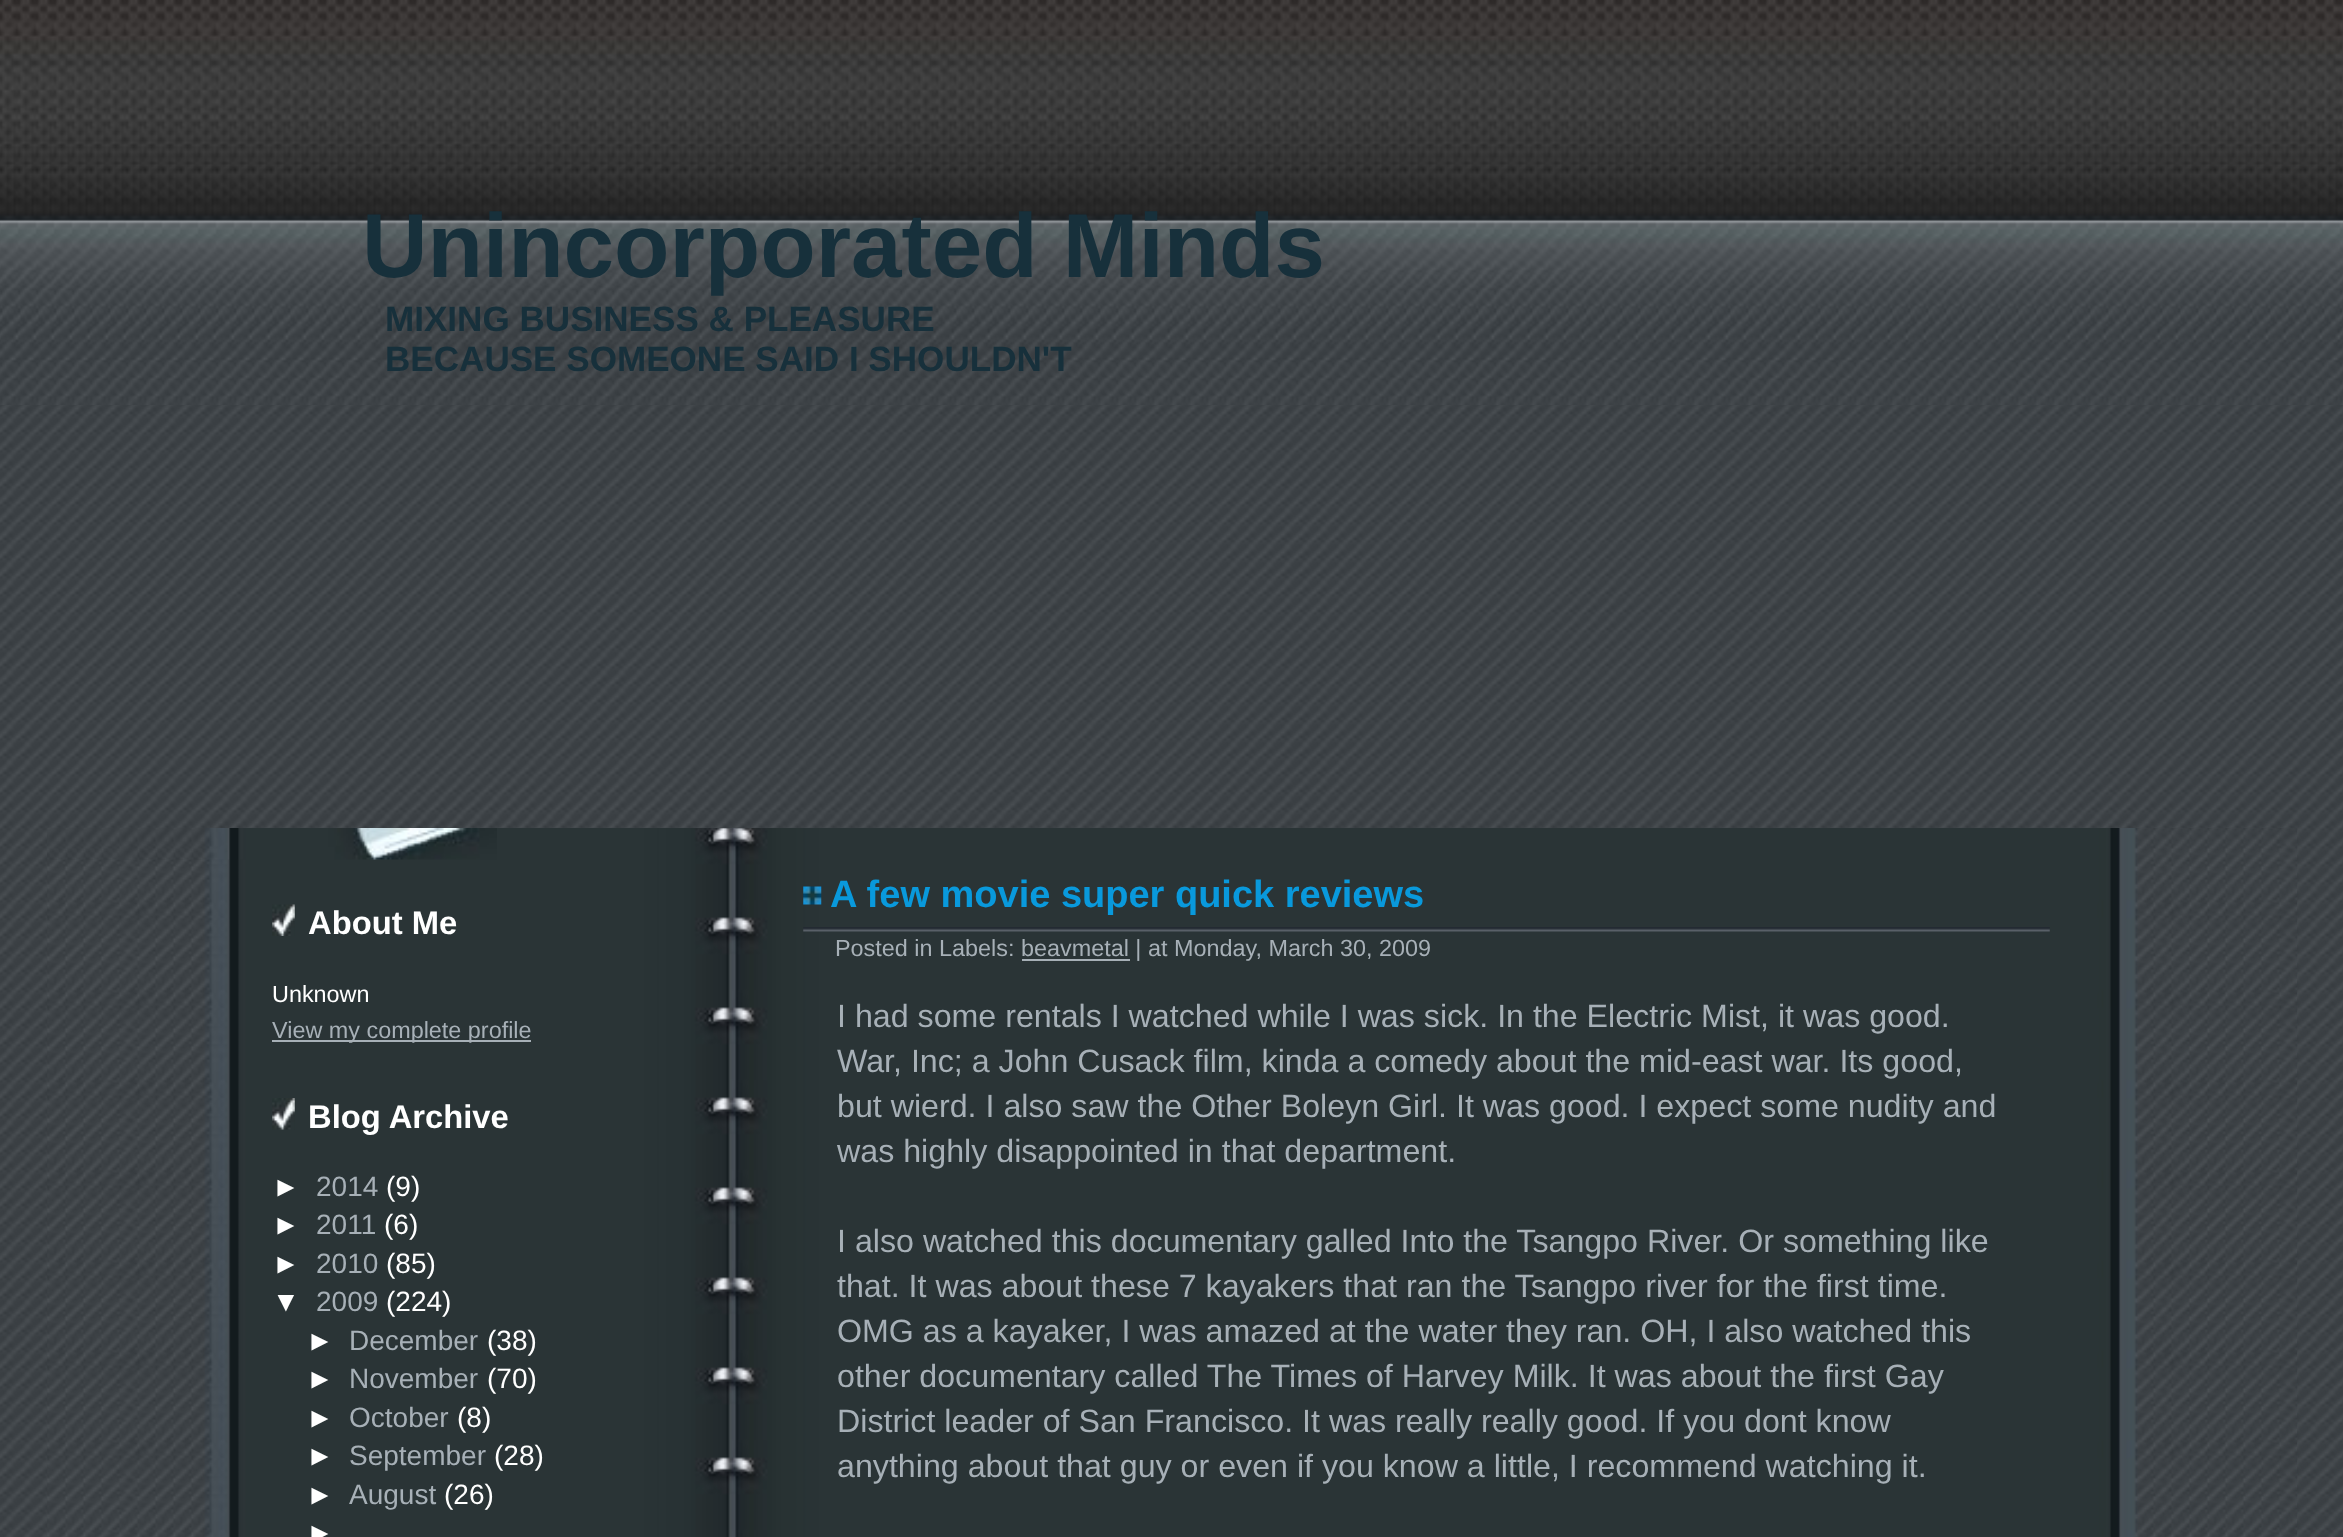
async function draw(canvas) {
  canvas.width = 2343;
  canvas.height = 1537;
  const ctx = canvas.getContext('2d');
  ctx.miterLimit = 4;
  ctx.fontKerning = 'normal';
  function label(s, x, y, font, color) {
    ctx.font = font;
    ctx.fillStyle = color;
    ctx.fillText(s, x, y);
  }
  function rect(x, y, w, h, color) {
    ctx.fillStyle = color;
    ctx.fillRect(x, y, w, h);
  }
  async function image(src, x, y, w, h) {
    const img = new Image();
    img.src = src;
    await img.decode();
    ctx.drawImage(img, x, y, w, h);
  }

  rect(0, 0, 2343, 1537, '#fff');
  await image('assets/img1.png', 0, 405, 2343, 1132);
  await image('assets/img2.png', 0, 0, 2343, 405);
  label('Unincorporated Minds', 362, 277, 'bold 90.75px Liberation Sans', '#17303b');
  label('MIXING BUSINESS & PLEASURE', 385, 331, 'bold 35.1px Liberation Sans', '#17303b');
  label('BECAUSE SOMEONE SAID I SHOULDN\'T', 385, 371, 'bold 35.1px Liberation Sans', '#17303b');
  await image('assets/img3.png', 47, 828, 2250, 709);
  await image('assets/img4.png', 47, 828, 450, 32);
  await image('assets/img5.png', 272, 904, 23, 32);
  label('About Me', 308, 934, 'bold 32.75px Liberation Sans', '#fff');
  label('Unknown', 272, 1002, '23.4px Liberation Sans', '#fff');
  rect(272, 1040, 259, 2, '#a7b0b7');
  label('View my complete profile', 272, 1038, '23.4px Liberation Sans', '#a7b0b7');
  await image('assets/img6.png', 272, 1098, 23, 32);
  label('Blog Archive', 308, 1128, 'bold 32.75px Liberation Sans', '#fff');
  label('►', 272, 1196, '28px Liberation Sans', '#fff');
  label('2014', 316, 1196, '28px Liberation Sans', '#a7b0b7');
  label('(9)', 386, 1196, '28px Liberation Sans', '#fff');
  label('►', 272, 1234, '28px Liberation Sans', '#fff');
  label('2011', 316, 1234, '28px Liberation Sans', '#a7b0b7');
  label('(6)', 384, 1234, '28px Liberation Sans', '#fff');
  label('►', 272, 1273, '28px Liberation Sans', '#fff');
  label('2010', 316, 1273, '28px Liberation Sans', '#a7b0b7');
  label('(85)', 386, 1273, '28px Liberation Sans', '#fff');
  label('▼', 272, 1311, '28px Liberation Sans', '#fff');
  label('2009', 316, 1311, '28px Liberation Sans', '#a7b0b7');
  label('(224)', 386, 1311, '28px Liberation Sans', '#fff');
  label('►', 306, 1350, '28px Liberation Sans', '#fff');
  label('December', 349, 1350, '28px Liberation Sans', '#a7b0b7');
  label('(38)', 487, 1350, '28px Liberation Sans', '#fff');
  label('►', 306, 1388, '28px Liberation Sans', '#fff');
  label('November', 349, 1388, '28px Liberation Sans', '#a7b0b7');
  label('(70)', 487, 1388, '28px Liberation Sans', '#fff');
  label('►', 306, 1427, '28px Liberation Sans', '#fff');
  label('October', 349, 1427, '28px Liberation Sans', '#a7b0b7');
  label('(8)', 457, 1427, '28px Liberation Sans', '#fff');
  label('►', 306, 1465, '28px Liberation Sans', '#fff');
  label('September', 349, 1465, '28px Liberation Sans', '#a7b0b7');
  label('(28)', 494, 1465, '28px Liberation Sans', '#fff');
  label('►', 306, 1504, '28px Liberation Sans', '#fff');
  label('August', 349, 1504, '28px Liberation Sans', '#a7b0b7');
  label('(26)', 444, 1504, '28px Liberation Sans', '#fff');
  label('►', 306, 1542, '28px Liberation Sans', '#fff');
  await image('assets/img7.png', 803, 886, 19, 19);
  label('A few movie super quick reviews', 830, 907, 'bold 38px Liberation Sans', '#0999dc');
  await image('assets/img8.png', 803, 927, 1247, 5);
  label('Posted in Labels: beavmetal | at Monday, March 30, 2009', 835, 956, '23.4px Liberation Sans', '#a7b0b7');
  rect(1022, 959, 108, 2, '#a7b0b7');
  label('I had some rentals I watched while I was sick. In the Electric Mist, it was good.', 837, 1027, '32.2px Liberation Sans', '#a7b0b7');
  label('War, Inc; a John Cusack film, kinda a comedy about the mid-east war. Its good,', 837, 1072, '32.2px Liberation Sans', '#a7b0b7');
  label('but wierd. I also saw the Other Boleyn Girl. It was good. I expect some nudity and', 837, 1117, '32.2px Liberation Sans', '#a7b0b7');
  label('was highly disappointed in that department.', 837, 1162, '32.2px Liberation Sans', '#a7b0b7');
  label('I also watched this documentary galled Into the Tsangpo River. Or something like', 837, 1252, '32.2px Liberation Sans', '#a7b0b7');
  label('that. It was about these 7 kayakers that ran the Tsangpo river for the first time.', 837, 1297, '32.2px Liberation Sans', '#a7b0b7');
  label('OMG as a kayaker, I was amazed at the water they ran. OH, I also watched this', 837, 1342, '32.2px Liberation Sans', '#a7b0b7');
  label('other documentary called The Times of Harvey Milk. It was about the first Gay', 837, 1387, '32.2px Liberation Sans', '#a7b0b7');
  label('District leader of San Francisco. It was really really good. If you dont know', 837, 1432, '32.2px Liberation Sans', '#a7b0b7');
  label('anything about that guy or even if you know a little, I recommend watching it.', 837, 1477, '32.2px Liberation Sans', '#a7b0b7');
}

draw(document.querySelector('canvas'));
